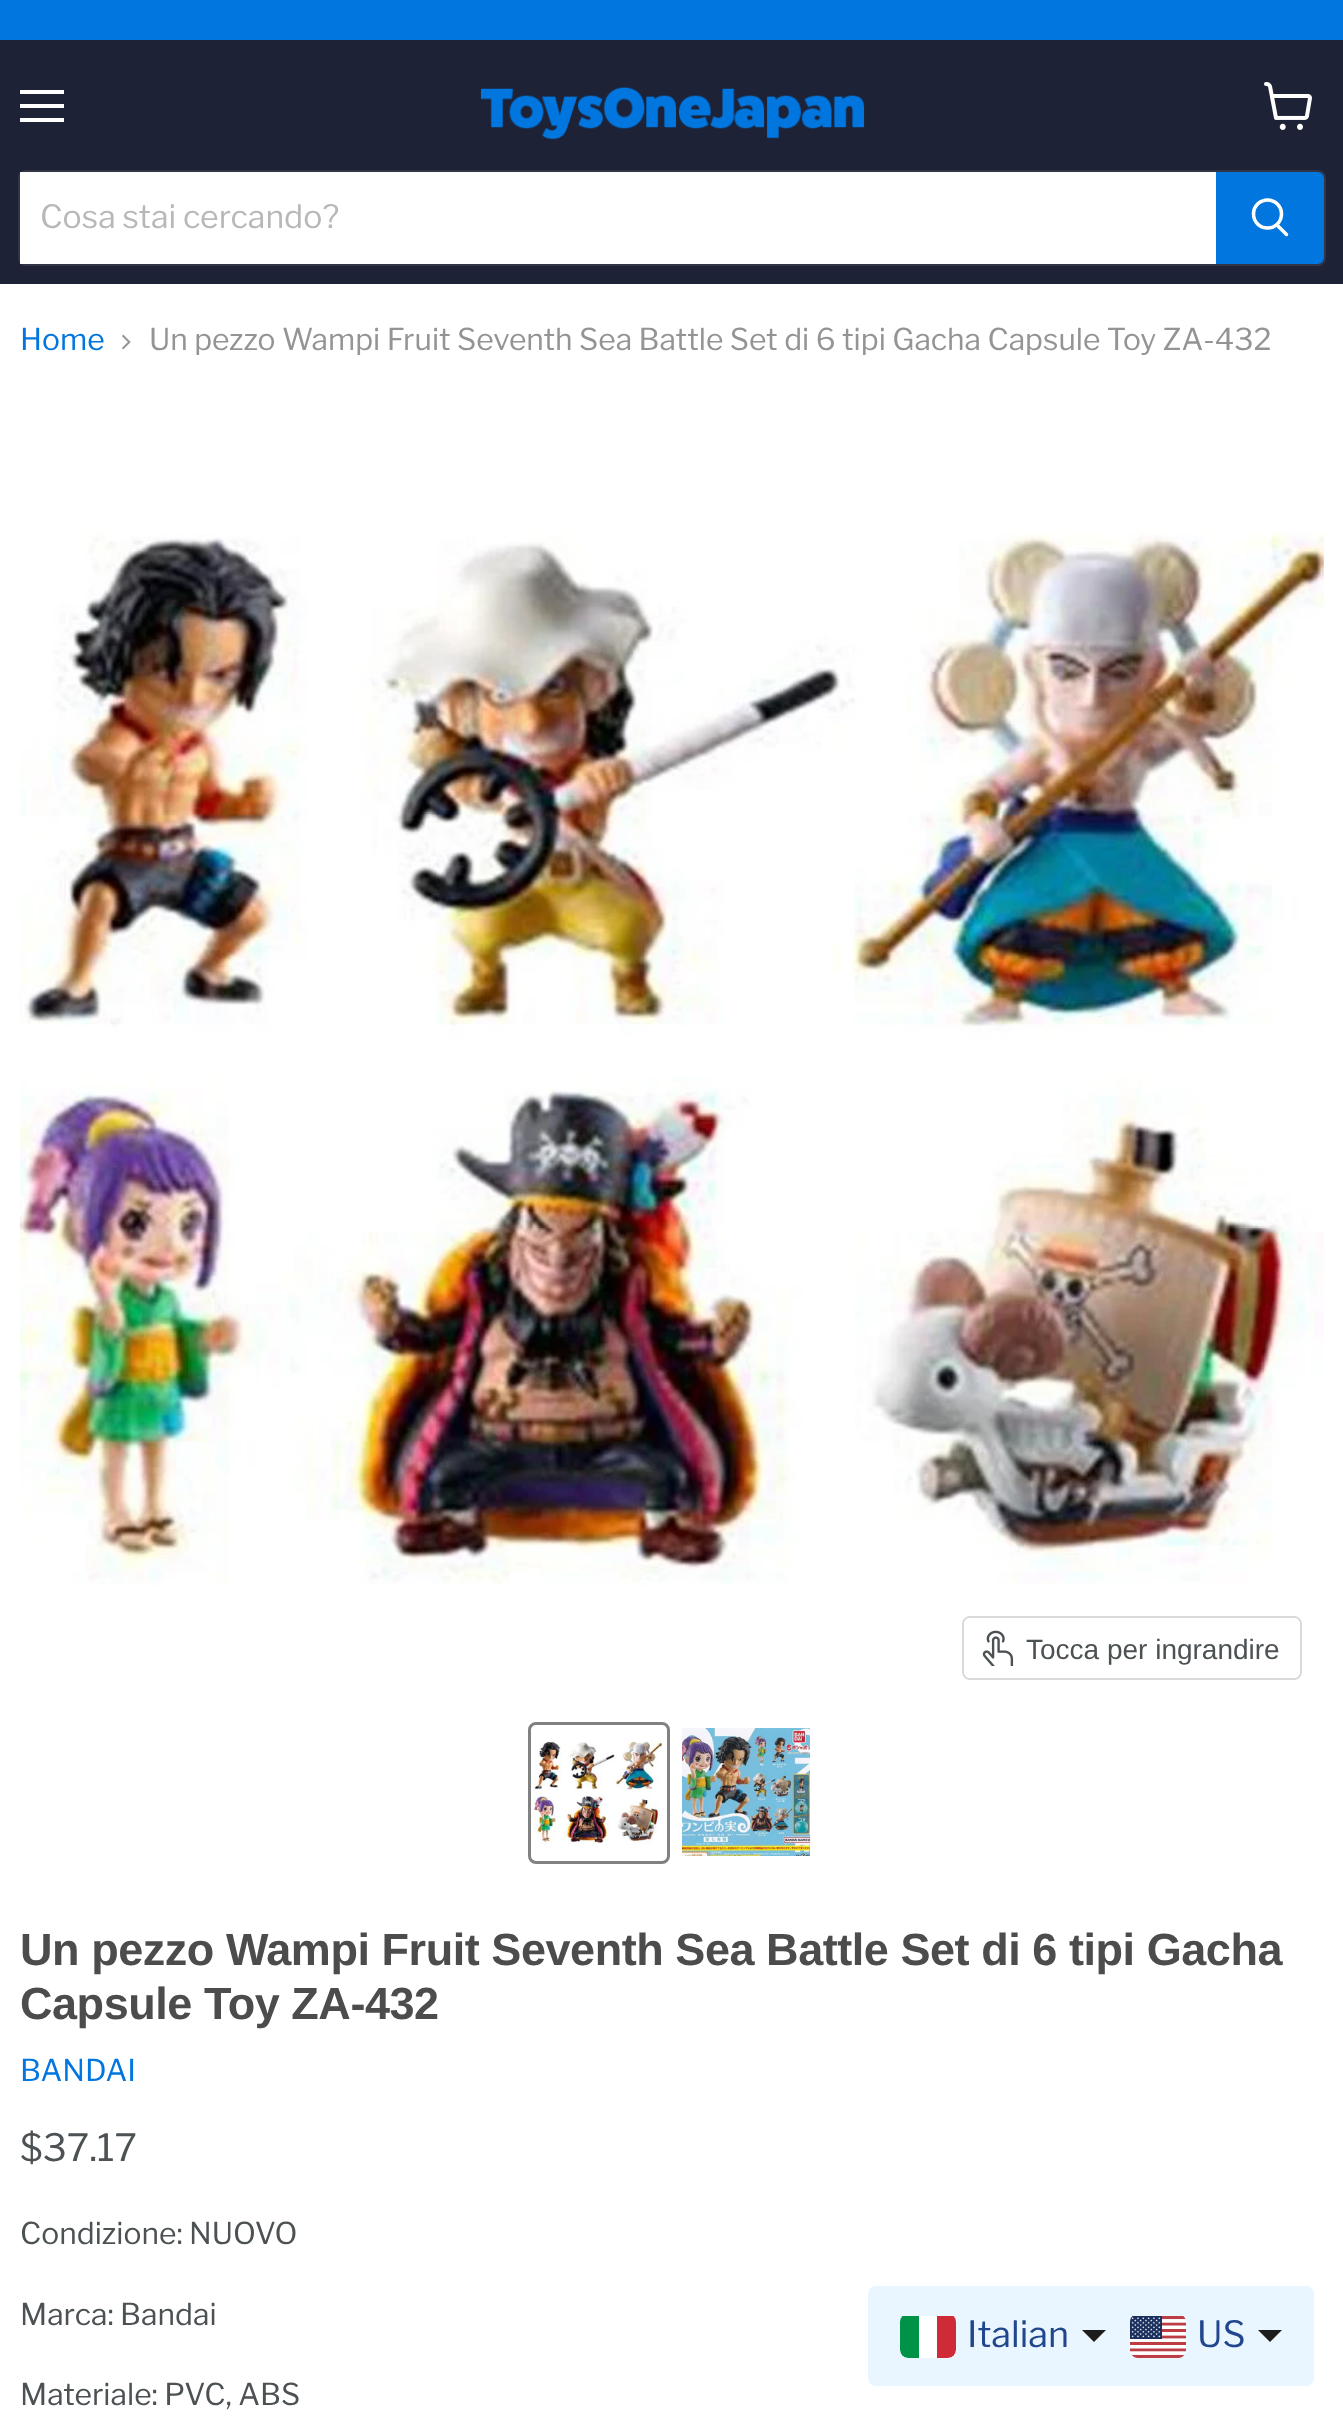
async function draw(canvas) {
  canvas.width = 1343;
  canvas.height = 2416;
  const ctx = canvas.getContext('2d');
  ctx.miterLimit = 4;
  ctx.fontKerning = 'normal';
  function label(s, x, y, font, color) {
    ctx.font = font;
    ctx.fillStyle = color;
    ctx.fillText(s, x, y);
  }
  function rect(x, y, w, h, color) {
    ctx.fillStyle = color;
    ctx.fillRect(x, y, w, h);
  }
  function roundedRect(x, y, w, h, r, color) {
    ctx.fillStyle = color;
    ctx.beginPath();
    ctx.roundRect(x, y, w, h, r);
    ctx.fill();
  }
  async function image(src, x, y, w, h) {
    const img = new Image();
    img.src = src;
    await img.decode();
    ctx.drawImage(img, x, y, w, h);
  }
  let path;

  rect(0, 0, 1343, 2416, '#fff');
  rect(0, 0, 1343, 40, '#0076de');
  rect(0, 40, 1343, 244, '#1d2236');
  rect(20, 90, 44, 4, '#fff');
  rect(20, 104, 44, 4, '#fff');
  rect(20, 118, 44, 4, '#fff');
  await image('assets/img1.png', 1264, 82, 48, 48);
  await image('assets/img2.png', 480, 86, 385, 54);
  ctx.beginPath();
  ctx.roundRect(19, 171, 1306, 94, 7);
  ctx.strokeStyle = '#80808033';
  ctx.lineWidth = 2;
  ctx.stroke();
  rect(20, 172, 1196, 92, '#fff');
  label('Cosa stai cercando?', 40, 228, '32px Libre Franklin', '#b8b8b8');
  ctx.fillStyle = '#0076de';
  ctx.beginPath();
  ctx.roundRect(1217, 173, 106, 90, [0, 5, 5, 0]);
  ctx.fill();
  ctx.strokeStyle = '#0076de';
  ctx.stroke();
  path = new Path2D('M1286.5 234.5L1277 225');
  ctx.strokeStyle = '#fff';
  ctx.lineWidth = 3.5;
  ctx.lineCap = 'round';
  ctx.stroke(path);
  ctx.beginPath();
  ctx.arc(1267.5, 214, 14, 0, 2 * Math.PI);
  ctx.stroke();
  label('Home', 20, 350, '30px Libre Franklin', '#0076de');
  await image('assets/img3.png', 122, 334, 9, 16);
  label('Un pezzo Wampi Fruit Seventh Sea Battle Set di 6 tipi Gacha Capsule Toy ZA-432', 149, 350, '30px Libre Franklin', '#949494');
  await image('assets/img4.png', 20, 531, 1304, 1054);
  ctx.beginPath();
  ctx.roundRect(963, 1617, 338, 62, 7);
  ctx.strokeStyle = '#d9d9d9';
  ctx.lineWidth = 2;
  ctx.stroke();
  roundedRect(964, 1618, 336, 60, 6, '#ffffffe6');
  await image('assets/img5.png', 982, 1630, 32, 36);
  label('Tocca per ingrandire', 1026, 1659, '28px Liberation Sans', '#4c5154');
  ctx.beginPath();
  ctx.roundRect(529.5, 1723.5, 139, 139, 6.5);
  ctx.strokeStyle = '#818181';
  ctx.lineWidth = 3;
  ctx.stroke();
  await image('assets/img6.png', 534, 1740, 128, 105);
  await image('assets/img7.png', 682, 1728, 128, 128);
  ctx.letterSpacing = '-0.45px';
  label('Un pezzo Wampi Fruit Seventh Sea Battle Set di 6 tipi Gacha', 20, 1965, 'bold 45px Arimo', '#4c4c4c');
  label('Capsule Toy ZA-432', 20, 2019, 'bold 45px Arimo', '#4c4c4c');
  ctx.letterSpacing = '0px';
  label('BANDAI', 20, 2081, '30px Libre Franklin', '#0076de');
  label('$37.17', 20, 2161, '37.5px Libre Franklin', '#4c5154');
  label('Condizione: NUOVO', 20, 2244, '30px Libre Franklin', '#4c5154');
  label('Marca: Bandai', 20, 2325, '30px Libre Franklin', '#4c5154');
  label('Materiale: PVC, ABS', 20, 2405, '30px Libre Franklin', '#4c5154');
  roundedRect(868, 2286, 446, 100, 8, '#eaf6ff');
  ctx.save();
  ctx.beginPath();
  ctx.roundRect(900, 2314, 56, 44, 8);
  ctx.clip();
  ctx.fillStyle = '#fff';
  ctx.beginPath();
  ctx.roundRect(900, 2316, 56, 42, [0, 0, 8, 8]);
  ctx.fill();
  ctx.fillStyle = '#009246';
  ctx.beginPath();
  ctx.roundRect(900, 2316, 19, 42, [0, 0, 0, 8]);
  ctx.fill();
  ctx.fillStyle = '#ce2b37';
  ctx.beginPath();
  ctx.roundRect(937, 2316, 19, 42, [0, 0, 8, 0]);
  ctx.fill();
  ctx.restore();
  label('Italian', 967, 2347, '36px Libre Franklin', '#20468d');
  ctx.fillStyle = '#1d1d1d';
  path = new Path2D('M1082 2330H1106L1094 2342Z');
  ctx.fill(path);
  await image('assets/img8.png', 1130, 2316, 56, 42);
  label('US', 1197, 2347, '36px Libre Franklin', '#20468d');
  ctx.fillStyle = '#1d1d1d';
  path = new Path2D('M1258 2330H1282L1270 2342Z');
  ctx.fill(path);
}

draw(document.querySelector('canvas'));
